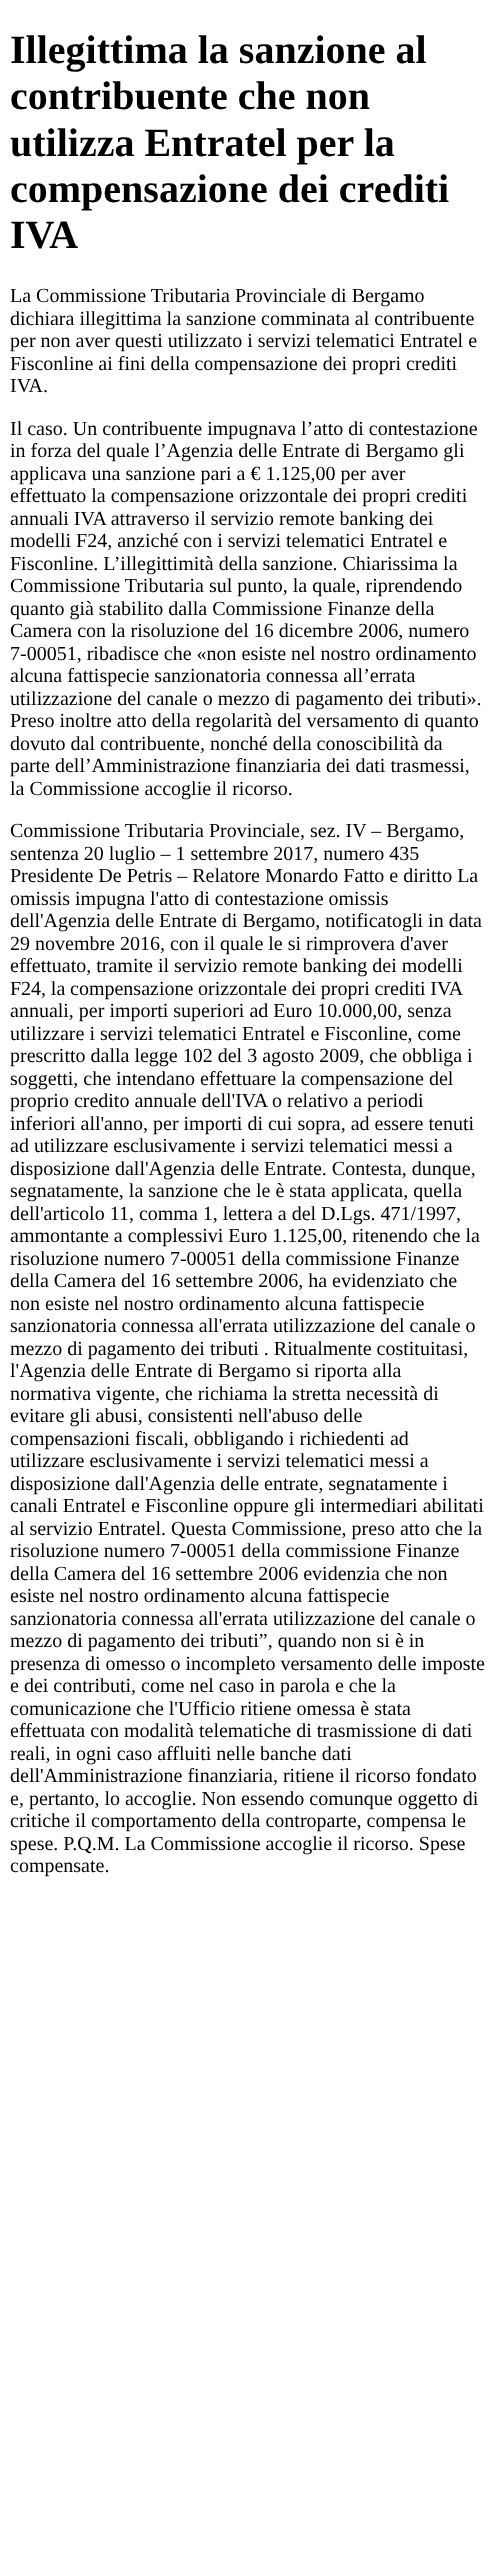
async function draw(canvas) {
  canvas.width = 495;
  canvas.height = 2568;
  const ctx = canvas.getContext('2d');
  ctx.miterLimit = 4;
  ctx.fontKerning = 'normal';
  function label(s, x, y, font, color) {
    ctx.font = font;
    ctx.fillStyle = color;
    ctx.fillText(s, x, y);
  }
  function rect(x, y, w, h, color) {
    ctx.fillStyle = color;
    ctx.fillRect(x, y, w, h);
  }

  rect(0, 0, 495, 2568, '#fff');
  label('Illegittima la sanzione al', 10, 63, 'bold 40px Liberation Serif', '#000');
  label('contribuente che non', 10, 109, 'bold 40px Liberation Serif', '#000');
  label('utilizza Entratel per la', 10, 156, 'bold 40px Liberation Serif', '#000');
  label('compensazione dei crediti', 10, 202, 'bold 40px Liberation Serif', '#000');
  label('IVA', 10, 248, 'bold 40px Liberation Serif', '#000');
  label('La Commissione Tributaria Provinciale di Bergamo', 10, 302, '20px Liberation Serif', '#000');
  label('dichiara illegittima la sanzione comminata al contribuente', 10, 325, '20px Liberation Serif', '#000');
  label('per non aver questi utilizzato i servizi telematici Entratel e', 10, 347, '20px Liberation Serif', '#000');
  label('Fisconline ai fini della compensazione dei propri crediti', 10, 370, '20px Liberation Serif', '#000');
  label('IVA.', 10, 392, '20px Liberation Serif', '#000');
  label('Il caso. Un contribuente impugnava l’atto di contestazione', 10, 435, '20px Liberation Serif', '#000');
  label('in forza del quale l’Agenzia delle Entrate di Bergamo gli', 10, 457, '20px Liberation Serif', '#000');
  label('applicava una sanzione pari a € 1.125,00 per aver', 10, 480, '20px Liberation Serif', '#000');
  label('effettuato la compensazione orizzontale dei propri crediti', 10, 502, '20px Liberation Serif', '#000');
  label('annuali IVA attraverso il servizio remote banking dei', 10, 525, '20px Liberation Serif', '#000');
  label('modelli F24, anziché con i servizi telematici Entratel e', 10, 547, '20px Liberation Serif', '#000');
  label('Fisconline. L’illegittimità della sanzione. Chiarissima la', 10, 570, '20px Liberation Serif', '#000');
  label('Commissione Tributaria sul punto, la quale, riprendendo', 10, 592, '20px Liberation Serif', '#000');
  label('quanto già stabilito dalla Commissione Finanze della', 10, 615, '20px Liberation Serif', '#000');
  label('Camera con la risoluzione del 16 dicembre 2006, numero', 10, 637, '20px Liberation Serif', '#000');
  label('7-00051, ribadisce che «non esiste nel nostro ordinamento', 10, 660, '20px Liberation Serif', '#000');
  label('alcuna fattispecie sanzionatoria connessa all’errata', 10, 682, '20px Liberation Serif', '#000');
  label('utilizzazione del canale o mezzo di pagamento dei tributi».', 10, 705, '20px Liberation Serif', '#000');
  label('Preso inoltre atto della regolarità del versamento di quanto', 10, 727, '20px Liberation Serif', '#000');
  label('dovuto dal contribuente, nonché della conoscibilità da', 10, 750, '20px Liberation Serif', '#000');
  label('parte dell’Amministrazione finanziaria dei dati trasmessi,', 10, 772, '20px Liberation Serif', '#000');
  label('la Commissione accoglie il ricorso.', 10, 795, '20px Liberation Serif', '#000');
  label('Commissione Tributaria Provinciale, sez. IV – Bergamo,', 10, 837, '20px Liberation Serif', '#000');
  label('sentenza 20 luglio – 1 settembre 2017, numero 435', 10, 860, '20px Liberation Serif', '#000');
  label('Presidente De Petris – Relatore Monardo Fatto e diritto La', 10, 882, '20px Liberation Serif', '#000');
  label('omissis impugna l\'atto di contestazione omissis', 10, 905, '20px Liberation Serif', '#000');
  label('dell\'Agenzia delle Entrate di Bergamo, notificatogli in data', 10, 927, '20px Liberation Serif', '#000');
  label('29 novembre 2016, con il quale le si rimprovera d\'aver', 10, 950, '20px Liberation Serif', '#000');
  label('effettuato, tramite il servizio remote banking dei modelli', 10, 972, '20px Liberation Serif', '#000');
  ctx.wordSpacing = '-0.25px';
  label('F24, la compensazione orizzontale dei propri crediti IVA', 10, 995, '20px Liberation Serif', '#000');
  ctx.wordSpacing = '0px';
  label('annuali, per importi superiori ad Euro 10.000,00, senza', 10, 1017, '20px Liberation Serif', '#000');
  label('utilizzare i servizi telematici Entratel e Fisconline, come', 10, 1040, '20px Liberation Serif', '#000');
  label('prescritto dalla legge 102 del 3 agosto 2009, che obbliga i', 10, 1062, '20px Liberation Serif', '#000');
  label('soggetti, che intendano effettuare la compensazione del', 10, 1085, '20px Liberation Serif', '#000');
  label('proprio credito annuale dell\'IVA o relativo a periodi', 10, 1107, '20px Liberation Serif', '#000');
  label('inferiori all\'anno, per importi di cui sopra, ad essere tenuti', 10, 1130, '20px Liberation Serif', '#000');
  label('ad utilizzare esclusivamente i servizi telematici messi a', 10, 1152, '20px Liberation Serif', '#000');
  label('disposizione dall\'Agenzia delle Entrate. Contesta, dunque,', 10, 1175, '20px Liberation Serif', '#000');
  label('segnatamente, la sanzione che le è stata applicata, quella', 10, 1197, '20px Liberation Serif', '#000');
  label('dell\'articolo 11, comma 1, lettera a del D.Lgs. 471/1997,', 10, 1220, '20px Liberation Serif', '#000');
  label('ammontante a complessivi Euro 1.125,00, ritenendo che la', 10, 1242, '20px Liberation Serif', '#000');
  label('risoluzione numero 7-00051 della commissione Finanze', 10, 1265, '20px Liberation Serif', '#000');
  label('della Camera del 16 settembre 2006, ha evidenziato che', 10, 1287, '20px Liberation Serif', '#000');
  label('non esiste nel nostro ordinamento alcuna fattispecie', 10, 1310, '20px Liberation Serif', '#000');
  label('sanzionatoria connessa all\'errata utilizzazione del canale o', 10, 1332, '20px Liberation Serif', '#000');
  label('mezzo di pagamento dei tributi . Ritualmente costituitasi,', 10, 1355, '20px Liberation Serif', '#000');
  label('l\'Agenzia delle Entrate di Bergamo si riporta alla', 10, 1377, '20px Liberation Serif', '#000');
  label('normativa vigente, che richiama la stretta necessità di', 10, 1400, '20px Liberation Serif', '#000');
  label('evitare gli abusi, consistenti nell\'abuso delle', 10, 1422, '20px Liberation Serif', '#000');
  label('compensazioni fiscali, obbligando i richiedenti ad', 10, 1445, '20px Liberation Serif', '#000');
  label('utilizzare esclusivamente i servizi telematici messi a', 10, 1467, '20px Liberation Serif', '#000');
  label('disposizione dall\'Agenzia delle entrate, segnatamente i', 10, 1490, '20px Liberation Serif', '#000');
  label('canali Entratel e Fisconline oppure gli intermediari abilitati', 10, 1512, '20px Liberation Serif', '#000');
  label('al servizio Entratel. Questa Commissione, preso atto che la', 10, 1535, '20px Liberation Serif', '#000');
  label('risoluzione numero 7-00051 della commissione Finanze', 10, 1557, '20px Liberation Serif', '#000');
  label('della Camera del 16 settembre 2006 evidenzia che non', 10, 1580, '20px Liberation Serif', '#000');
  label('esiste nel nostro ordinamento alcuna fattispecie', 10, 1602, '20px Liberation Serif', '#000');
  label('sanzionatoria connessa all\'errata utilizzazione del canale o', 10, 1625, '20px Liberation Serif', '#000');
  label('mezzo di pagamento dei tributi”, quando non si è in', 10, 1647, '20px Liberation Serif', '#000');
  label('presenza di omesso o incompleto versamento delle imposte', 10, 1670, '20px Liberation Serif', '#000');
  label('e dei contributi, come nel caso in parola e che la', 10, 1692, '20px Liberation Serif', '#000');
  label('comunicazione che l\'Ufficio ritiene omessa è stata', 10, 1715, '20px Liberation Serif', '#000');
  label('effettuata con modalità telematiche di trasmissione di dati', 10, 1737, '20px Liberation Serif', '#000');
  label('reali, in ogni caso affluiti nelle banche dati', 10, 1760, '20px Liberation Serif', '#000');
  label('dell\'Amministrazione finanziaria, ritiene il ricorso fondato', 10, 1782, '20px Liberation Serif', '#000');
  label('e, pertanto, lo accoglie. Non essendo comunque oggetto di', 10, 1805, '20px Liberation Serif', '#000');
  label('critiche il comportamento della controparte, compensa le', 10, 1827, '20px Liberation Serif', '#000');
  label('spese. P.Q.M. La Commissione accoglie il ricorso. Spese', 10, 1850, '20px Liberation Serif', '#000');
  label('compensate.', 10, 1872, '20px Liberation Serif', '#000');
}

draw(document.querySelector('canvas'));
